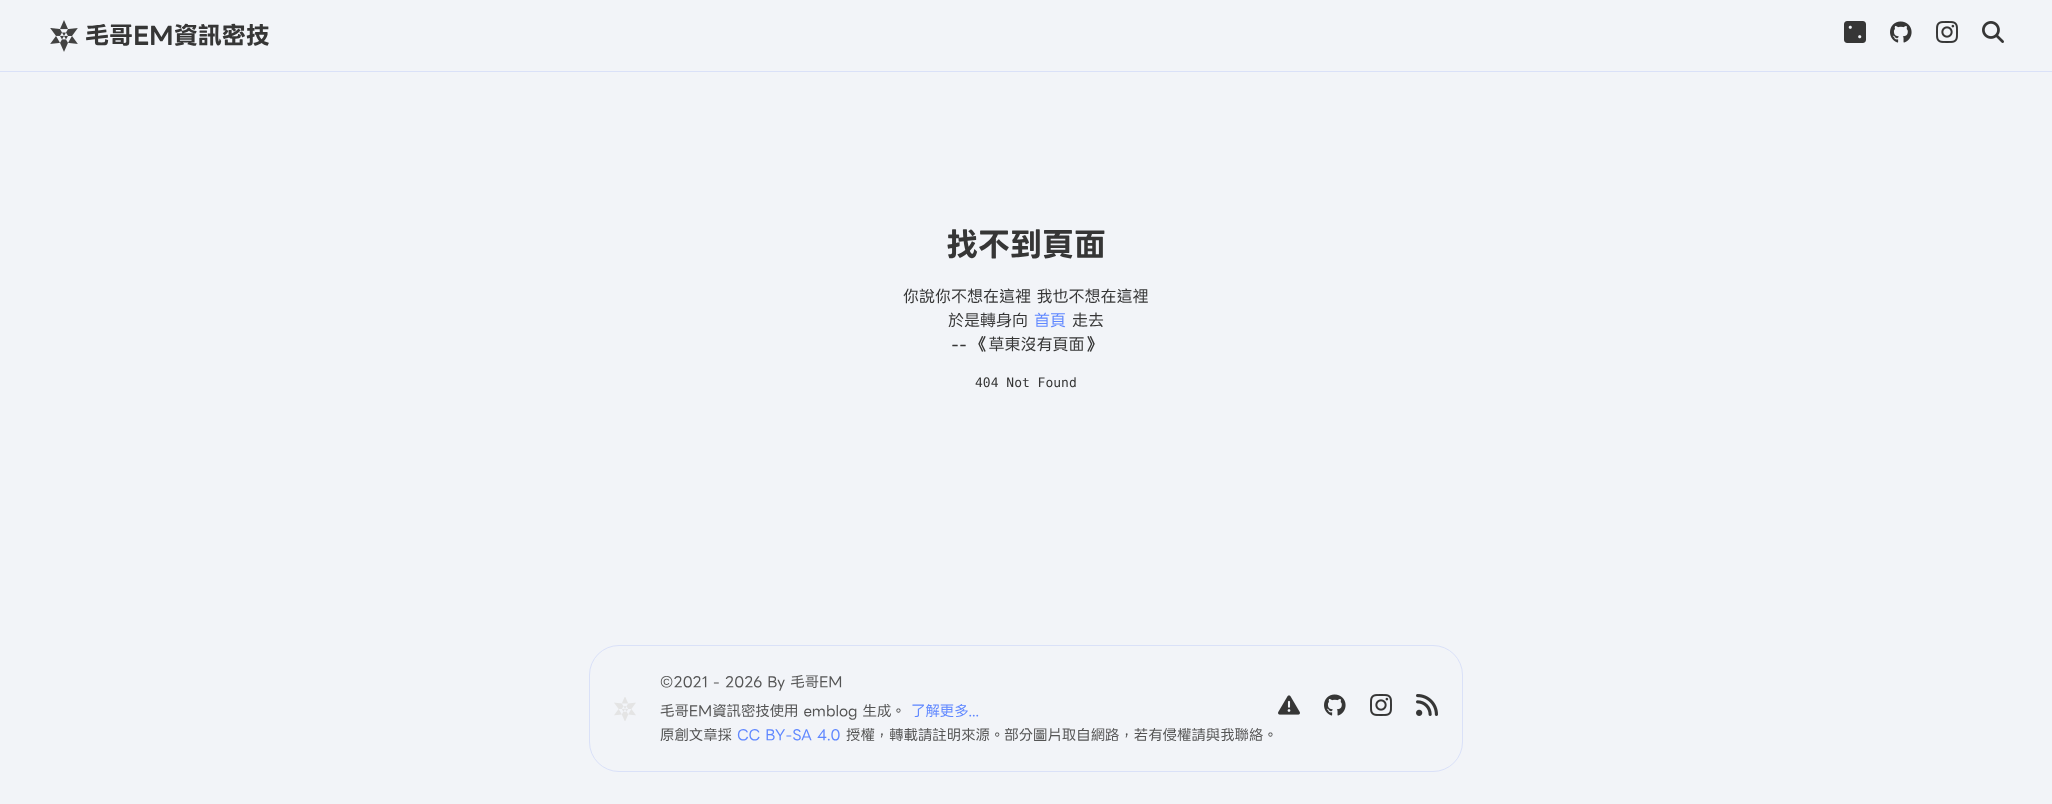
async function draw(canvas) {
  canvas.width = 2052;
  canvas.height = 804;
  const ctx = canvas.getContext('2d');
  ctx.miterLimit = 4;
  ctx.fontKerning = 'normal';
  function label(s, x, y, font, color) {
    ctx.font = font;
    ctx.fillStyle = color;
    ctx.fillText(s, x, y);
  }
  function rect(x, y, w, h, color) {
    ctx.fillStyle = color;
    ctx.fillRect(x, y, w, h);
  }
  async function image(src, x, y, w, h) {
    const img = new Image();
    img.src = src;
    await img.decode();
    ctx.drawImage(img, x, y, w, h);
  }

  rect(0, 0, 2052, 804, '#f2f4f8');
  rect(0, 71, 2052, 1, '#dae1f8');
  await image('assets/img1.png', 50, 20, 28, 32);
  label('毛哥EM資訊密技', 85, 44, 'bold 24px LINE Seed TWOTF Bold', '#363636');
  await image('assets/img2.png', 1844, 21, 22, 22);
  await image('assets/img3.png', 1890, 21, 22, 22);
  await image('assets/img4.png', 1936, 21, 22, 22);
  await image('assets/img5.png', 1982, 21, 22, 22);
  label('找不到頁面', 946, 256, 'bold 32px LINE Seed TWOTF Bold', '#363636');
  label('你說你不想在這裡 我也不想在這裡', 903, 302, '16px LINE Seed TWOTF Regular', '#363636');
  label('於是轉身向', 948, 326, '16px LINE Seed TWOTF Regular', '#363636');
  label('首頁', 1034, 326, '16px LINE Seed TWOTF Regular', '#5f87ff');
  label('走去', 1072, 326, '16px LINE Seed TWOTF Regular', '#363636');
  label('-- 《草東沒有頁面》', 951, 350, '16px LINE Seed TWOTF Regular', '#363636');
  label('404 Not Found', 975, 387, '13px DejaVu Sans Mono', '#363636');
  ctx.beginPath();
  ctx.roundRect(589.5, 645.5, 873, 126, 29.5);
  ctx.strokeStyle = '#dae1f8';
  ctx.stroke();
  await image('assets/img6.png', 614, 697, 22, 24);
  label('©2021 - 2026 By 毛哥EM', 660, 687, '14.4px LINE Seed TWOTF Regular', '#545454');
  label('毛哥EM資訊密技使用 emblog 生成。', 660, 716, '14.4px LINE Seed TWOTF Regular', '#545454');
  label('了解更多...', 911, 716, '14.4px LINE Seed TWOTF Regular', '#5f87ff');
  label('原創文章採', 660, 740, '14.4px LINE Seed TWOTF Regular', '#545454');
  label('CC BY-SA 4.0', 737, 740, '14.4px LINE Seed TWOTF Regular', '#5f87ff');
  label('授權，轉載請註明來源。部分圖片取自網路，若有侵權請與我聯絡。', 846, 740, '14.4px LINE Seed TWOTF Regular', '#545454');
  await image('assets/img7.png', 1278, 695, 22, 20);
  await image('assets/img3.png', 1324, 694, 22, 22);
  await image('assets/img4.png', 1370, 694, 22, 22);
  await image('assets/img8.png', 1416, 694, 22, 22);
}

draw(document.querySelector('canvas'));
